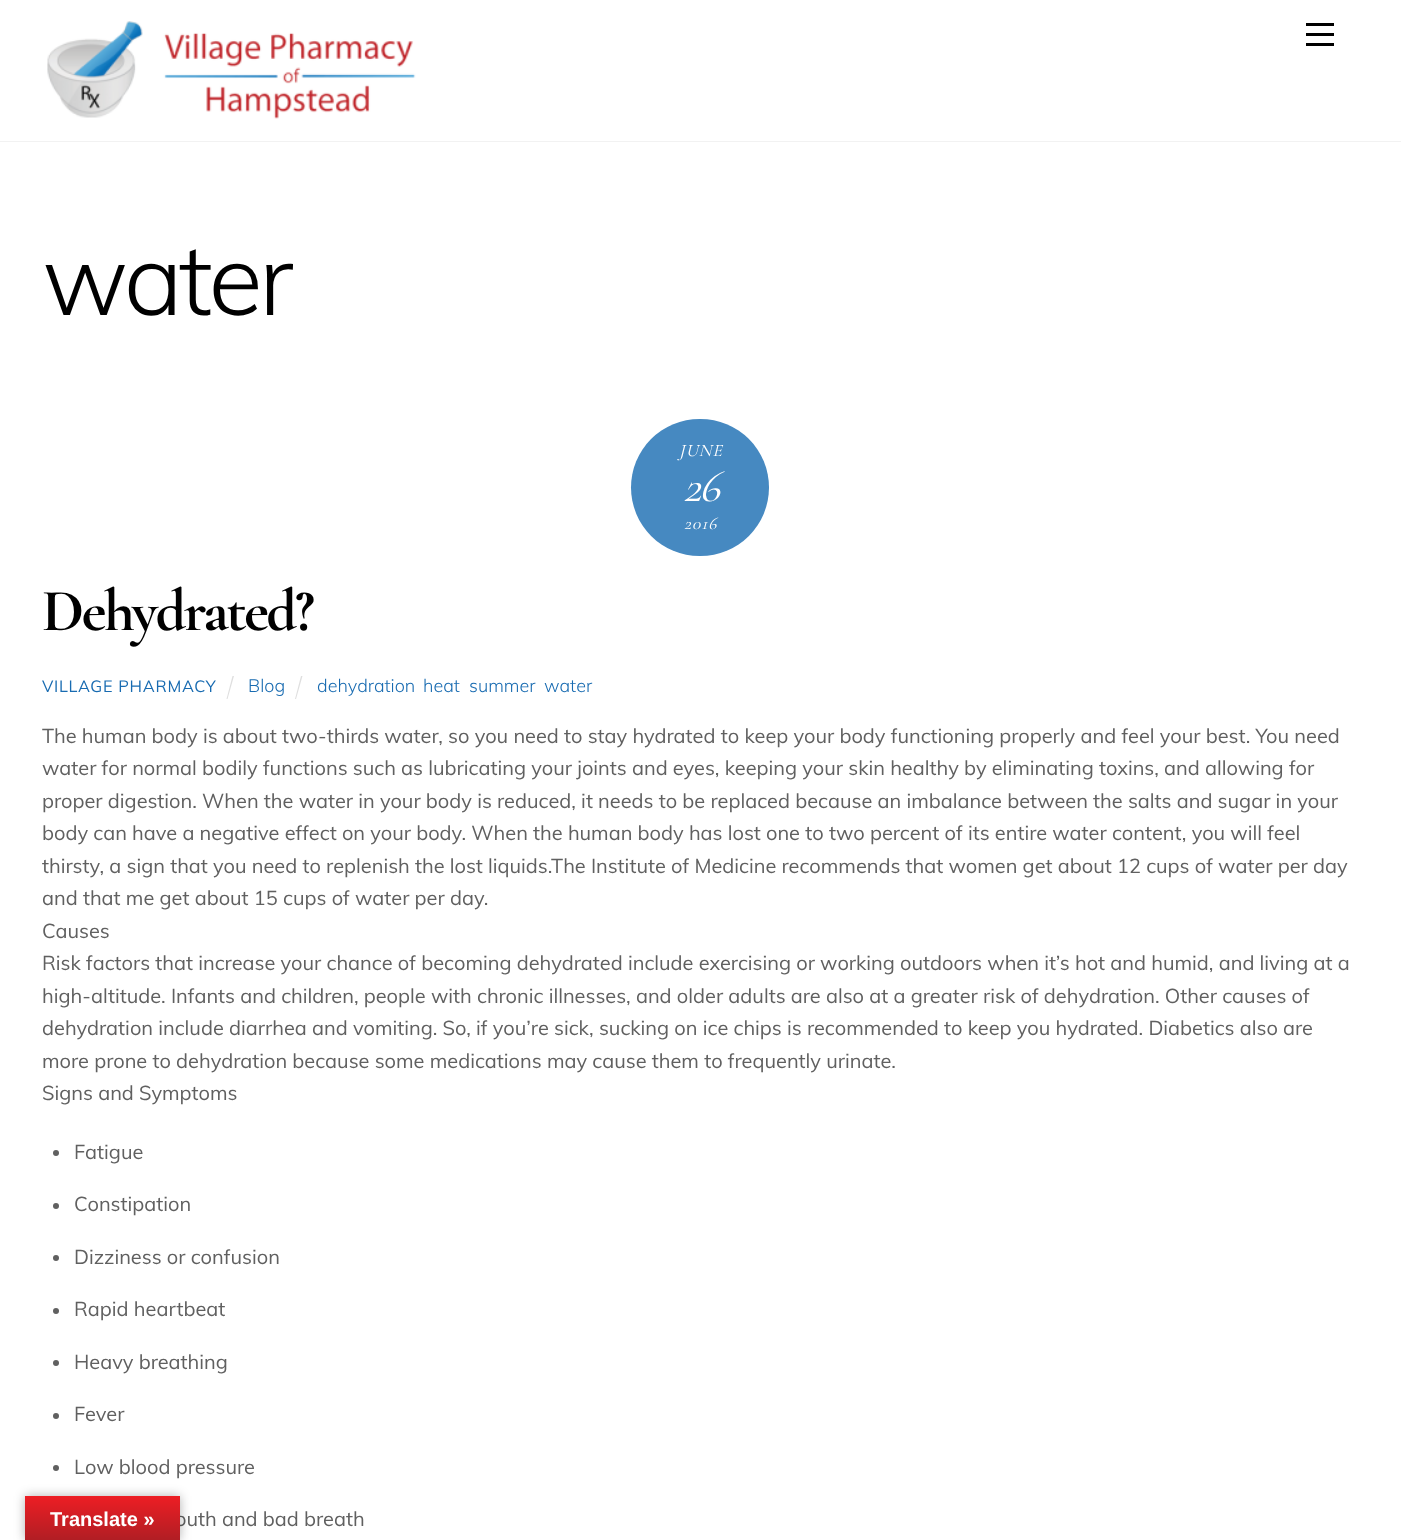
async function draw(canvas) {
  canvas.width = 1401;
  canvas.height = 1540;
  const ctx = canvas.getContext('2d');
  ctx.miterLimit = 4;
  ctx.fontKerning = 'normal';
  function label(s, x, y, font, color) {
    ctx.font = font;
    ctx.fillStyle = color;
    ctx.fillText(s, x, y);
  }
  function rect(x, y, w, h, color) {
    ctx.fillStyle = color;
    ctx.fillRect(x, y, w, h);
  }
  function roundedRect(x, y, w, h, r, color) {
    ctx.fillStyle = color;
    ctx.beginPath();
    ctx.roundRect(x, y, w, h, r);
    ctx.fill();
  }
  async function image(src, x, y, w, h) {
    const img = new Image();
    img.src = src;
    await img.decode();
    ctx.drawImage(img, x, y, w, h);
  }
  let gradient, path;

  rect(0, 0, 1401, 1540, '#fff');
  rect(0, 141, 1401, 1, '#f2f2f2');
  await image('assets/img1.png', 47, 21, 369, 98);
  rect(1306, 43, 28, 3, '#000');
  rect(1306, 23, 28, 3, '#000');
  rect(1306, 33, 28, 3, '#000');
  ctx.letterSpacing = '-4px';
  label('water', 42, 315, '300 100px Muli', '#000');
  roundedRect(631, 419, 138, 137, 68.5, '#4689c1');
  ctx.letterSpacing = '1px';
  label('JUNE', 679, 456, 'italic 17.5px Cormorant Garamond', '#fff');
  ctx.letterSpacing = '-2px';
  label('26', 683, 501, 'italic 45px Cormorant Garamond', '#fff');
  ctx.letterSpacing = '1px';
  label('2016', 684, 529, 'italic 17.5px Cormorant Garamond', '#fff');
  ctx.letterSpacing = '-2.4px';
  label('Dehydrated?', 42, 630, 'bold 60px Cormorant Garamond', '#000');
  ctx.letterSpacing = '0.75px';
  label('VILLAGE PHARMACY', 42, 692, '16.25px Muli', '#186bb1');
  ctx.fillStyle = '#dfdfdf';
  path = new Path2D('M232.5 676H234L227.5 699H226.5Z');
  ctx.fill(path);
  ctx.letterSpacing = '0px';
  label('Blog', 248, 692, '300 18px Muli', '#186bb1');
  ctx.fillStyle = '#dfdfdf';
  path = new Path2D('M301 676H302.5L296 699H295Z');
  ctx.fill(path);
  label('dehydration', 317, 692, '300 18px Muli', '#186bb1');
  label('heat', 423, 692, '300 18px Muli', '#186bb1');
  label('summer', 469, 692, '300 18px Muli', '#186bb1');
  label('water', 544, 692, '300 18px Muli', '#186bb1');
  label('The human body is about two-thirds water, so you need to stay hydrated to keep your body functioning properly and feel your best. You need', 42, 743, '20px Muli', '#606060');
  label('water for normal bodily functions such as lubricating your joints and eyes, keeping your skin healthy by eliminating toxins, and allowing for', 42, 775, '20px Muli', '#606060');
  label('proper digestion. When the water in your body is reduced, it needs to be replaced because an imbalance between the salts and sugar in your', 42, 808, '20px Muli', '#606060');
  label('body can have a negative effect on your body. When the human body has lost one to two percent of its entire water content, you will feel', 42, 840, '20px Muli', '#606060');
  label('thirsty, a sign that you need to replenish the lost liquids.The Institute of Medicine recommends that women get about 12 cups of water per day', 42, 873, '20px Muli', '#606060');
  label('and that me get about 15 cups of water per day.', 42, 905, '20px Muli', '#606060');
  label('Causes', 42, 938, '20px Muli', '#606060');
  label('Risk factors that increase your chance of becoming dehydrated include exercising or working outdoors when it’s hot and humid, and living at a', 42, 970, '20px Muli', '#606060');
  label('high-altitude. Infants and children, people with chronic illnesses, and older adults are also at a greater risk of dehydration. Other causes of', 42, 1003, '20px Muli', '#606060');
  label('dehydration include diarrhea and vomiting. So, if you’re sick, sucking on ice chips is recommended to keep you hydrated. Diabetics also are', 42, 1035, '20px Muli', '#606060');
  label('more prone to dehydration because some medications may cause them to frequently urinate.', 42, 1068, '20px Muli', '#606060');
  label('Signs and Symptoms', 42, 1100, '20px Muli', '#606060');
  ctx.beginPath();
  ctx.arc(56, 1153, 3, 0, 2 * Math.PI);
  ctx.fill();
  label('Fatigue', 74, 1159, '20px Muli', '#606060');
  ctx.beginPath();
  ctx.arc(56, 1206, 3, 0, 2 * Math.PI);
  ctx.fill();
  label('Constipation', 74, 1211, '20px Muli', '#606060');
  ctx.beginPath();
  ctx.arc(56, 1258, 3, 0, 2 * Math.PI);
  ctx.fill();
  label('Dizziness or confusion', 74, 1264, '20px Muli', '#606060');
  ctx.beginPath();
  ctx.arc(56, 1311, 3, 0, 2 * Math.PI);
  ctx.fill();
  label('Rapid heartbeat', 74, 1316, '20px Muli', '#606060');
  ctx.beginPath();
  ctx.arc(56, 1363, 3, 0, 2 * Math.PI);
  ctx.fill();
  label('Heavy breathing', 74, 1369, '20px Muli', '#606060');
  ctx.beginPath();
  ctx.arc(56, 1416, 3, 0, 2 * Math.PI);
  ctx.fill();
  label('Fever', 74, 1421, '20px Muli', '#606060');
  ctx.beginPath();
  ctx.arc(56, 1468, 3, 0, 2 * Math.PI);
  ctx.fill();
  label('Low blood pressure', 74, 1474, '20px Muli', '#606060');
  label('outh and bad breath', 175, 1526, '20px Muli', '#606060');
  ctx.fillStyle = '#0000004d';
  ctx.filter = 'blur(5.5px)';
  ctx.beginPath();
  ctx.rect(25, 1496, 155, 44);
  ctx.fill();
  ctx.filter = 'none';
  gradient = ctx.createLinearGradient(103, 1496, 103, 1540);
  gradient.addColorStop(0, '#ed1e24');
  gradient.addColorStop(1, '#b11e24');
  ctx.fillStyle = gradient;
  ctx.fillRect(25, 1496, 155, 44);
  label('Translate »', 50, 1526, 'bold 20px Liberation Sans', '#fff');
}

draw(document.querySelector('canvas'));
